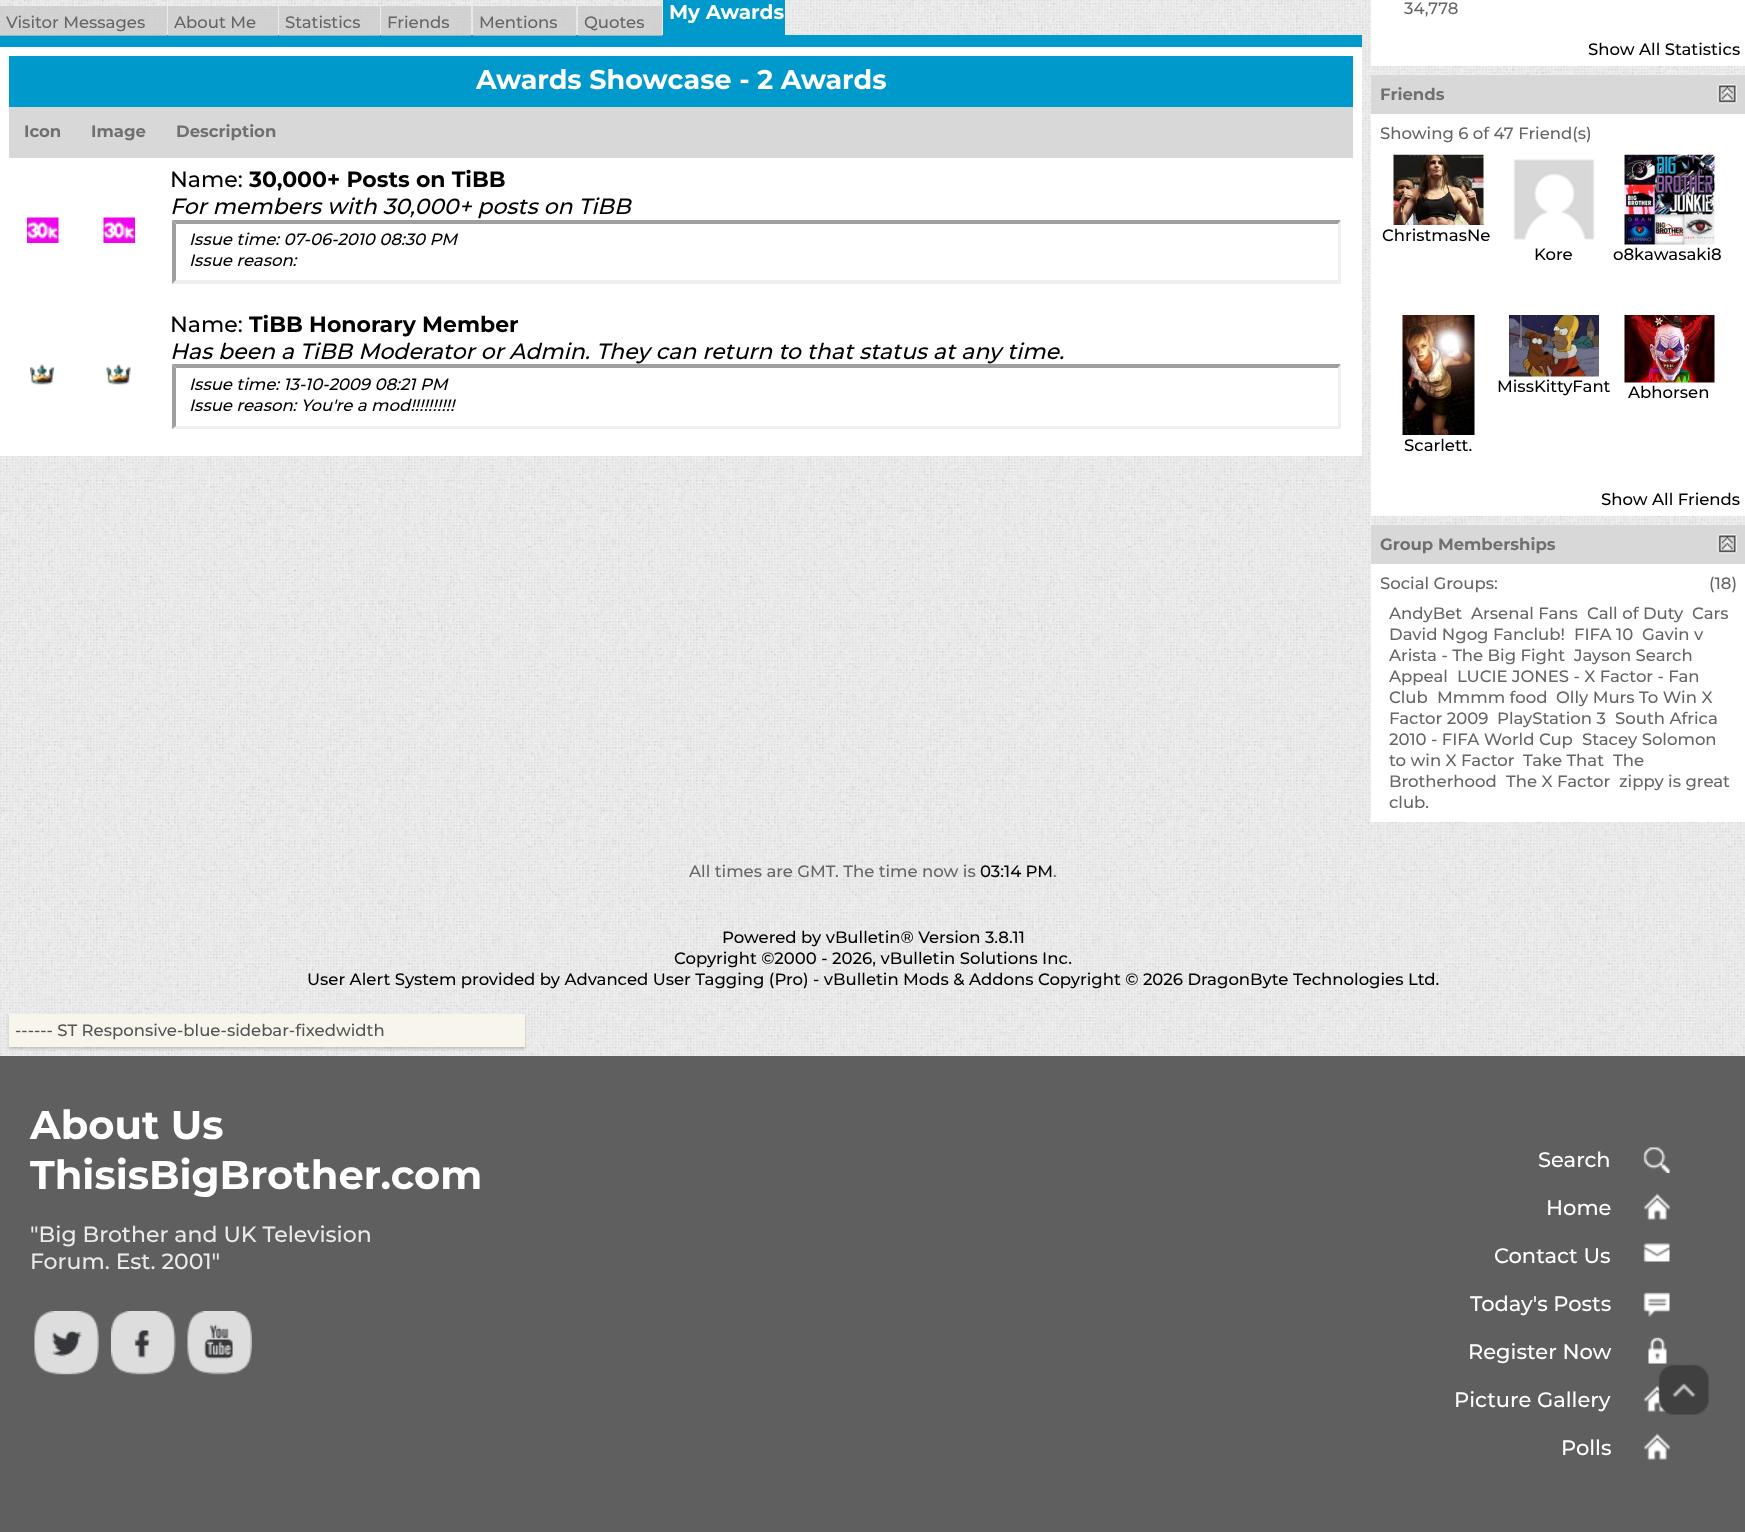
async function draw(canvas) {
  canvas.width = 1745;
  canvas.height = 1532;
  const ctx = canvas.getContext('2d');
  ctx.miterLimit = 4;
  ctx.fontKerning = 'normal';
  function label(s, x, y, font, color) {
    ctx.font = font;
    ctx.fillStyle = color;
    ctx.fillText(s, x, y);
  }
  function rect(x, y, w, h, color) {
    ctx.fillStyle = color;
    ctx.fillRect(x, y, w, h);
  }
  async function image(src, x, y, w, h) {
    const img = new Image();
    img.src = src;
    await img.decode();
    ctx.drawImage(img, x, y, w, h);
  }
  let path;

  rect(0, 0, 1745, 1532, '#fff');
  await image('assets/img1.png', 0, 0, 1745, 1056);
  rect(0, 35, 1362, 12, '#09c');
  rect(0, 6, 167, 30, '#c7c7c7b3');
  label('Visitor Messages', 6, 28, '500 16.5px Montserrat', '#666');
  rect(168, 6, 110, 30, '#c7c7c7b3');
  label('About Me', 174, 28, '500 16.5px Montserrat', '#666');
  rect(279, 6, 101, 30, '#c7c7c7b3');
  label('Statistics', 285, 28, '500 16.5px Montserrat', '#666');
  rect(381, 6, 90, 30, '#c7c7c7b3');
  label('Friends', 387, 28, '500 16.5px Montserrat', '#666');
  rect(473, 6, 103, 30, '#c7c7c7b3');
  label('Mentions', 479, 28, '500 16.5px Montserrat', '#666');
  rect(578, 6, 84, 30, '#c7c7c7b3');
  label('Quotes', 584, 28, '500 16.5px Montserrat', '#666');
  rect(663, 0, 122, 35, '#09c');
  label('My Awards', 669, 19, 'bold 20px Montserrat', '#fff');
  rect(0, 47, 1362, 409, '#fff');
  rect(9, 56, 1344, 51, '#09c');
  label('Awards Showcase - 2 Awards', 476, 89, 'bold 27px Montserrat', '#fff');
  rect(9, 107, 1344, 51, '#d8d8d8');
  label('Icon', 24, 137, 'bold 16.5px Montserrat', '#707070');
  label('Image', 91, 137, 'bold 16.5px Montserrat', '#707070');
  label('Description', 176, 137, 'bold 16.5px Montserrat', '#707070');
  await image('assets/img2.png', 27, 217, 32, 26);
  await image('assets/img3.png', 103, 217, 32, 26);
  label('Name:', 170, 187, '500 22px Montserrat', '#000');
  label('30,000+ Posts on TiBB', 249, 187, 'bold 22px Montserrat', '#000');
  label('For members with 30,000+ posts on TiBB', 170, 214, 'italic 500 22px Montserrat', '#000');
  ctx.fillStyle = '#9f9f9f';
  path = new Path2D('M172 220H1341L1338 224H176Z');
  ctx.fill(path);
  ctx.fillStyle = '#efefef';
  path = new Path2D('M1341 220V284L1338 280V224Z');
  ctx.fill(path);
  path = new Path2D('M1341 284H172L176 280H1338Z');
  ctx.fill(path);
  ctx.fillStyle = '#9f9f9f';
  path = new Path2D('M172 284V220L176 224V280Z');
  ctx.fill(path);
  label('Issue time: 07-06-2010 08:30 PM', 189, 245, 'italic 500 16.5px Montserrat', '#000');
  label('Issue reason:', 189, 266, 'italic 500 16.5px Montserrat', '#000');
  await image('assets/img4.png', 30, 364, 24, 21);
  await image('assets/img5.png', 106, 364, 25, 21);
  label('Name:', 170, 332, '500 22px Montserrat', '#000');
  label('TiBB Honorary Member', 249, 332, 'bold 22px Montserrat', '#000');
  label('Has been a TiBB Moderator or Admin.', 170, 359, 'italic 500 22px Montserrat', '#000');
  label('They can return to that status at any time.', 596, 359, 'italic 500 22px Montserrat', '#000');
  ctx.fillStyle = '#9f9f9f';
  path = new Path2D('M172 364H1341L1338 368H176Z');
  ctx.fill(path);
  ctx.fillStyle = '#efefef';
  path = new Path2D('M1341 364V429L1338 426V368Z');
  ctx.fill(path);
  path = new Path2D('M1341 429H172L176 426H1338Z');
  ctx.fill(path);
  ctx.fillStyle = '#9f9f9f';
  path = new Path2D('M172 429V364L176 368V426Z');
  ctx.fill(path);
  label('Issue time: 13-10-2009 08:21 PM', 189, 390, 'italic 500 16.5px Montserrat', '#000');
  label('Issue reason: You\'re a mod!!!!!!!!!!', 189, 411, 'italic 500 16.5px Montserrat', '#000');
  rect(1371, 0, 374, 66, '#fff');
  label('34,778', 1404, 14, '500 16.5px Montserrat', '#666');
  label('Show All Statistics', 1588, 55, '500 16.5px Montserrat', '#000');
  rect(1371, 114, 374, 402, '#fff');
  rect(1371, 75, 374, 39, '#d8d8d8');
  label('Friends', 1380, 100, 'bold 16.5px Montserrat', '#707070');
  await image('assets/img6.png', 1717, 84, 20, 20);
  label('Showing 6 of 47 Friend(s)', 1380, 139, '500 16.5px Montserrat', '#666');
  await image('assets/img7.png', 1393, 154, 91, 71);
  label('ChristmasNe', 1382, 241, '500 16.5px Montserrat', '#000');
  await image('assets/img8.png', 1513, 159, 82, 81);
  label('Kore', 1534, 260, '500 16.5px Montserrat', '#000');
  await image('assets/img9.png', 1624, 154, 91, 91);
  label('o8kawasaki8', 1613, 260, '500 16.5px Montserrat', '#000');
  await image('assets/img10.png', 1509, 315, 90, 62);
  label('MissKittyFant', 1497, 392, '500 16.5px Montserrat', '#000');
  await image('assets/img11.png', 1624, 315, 91, 68);
  label('Abhorsen', 1628, 398, '500 16.5px Montserrat', '#000');
  await image('assets/img12.png', 1402, 315, 73, 120);
  label('Scarlett.', 1404, 451, '500 16.5px Montserrat', '#000');
  label('Show All Friends', 1601, 505, '500 16.5px Montserrat', '#000');
  rect(1371, 564, 374, 258, '#fff');
  rect(1371, 525, 374, 39, '#d8d8d8');
  label('Group Memberships', 1380, 550, 'bold 16.5px Montserrat', '#707070');
  await image('assets/img6.png', 1717, 534, 20, 20);
  label('Social Groups:', 1380, 589, '500 16.5px Montserrat', '#666');
  label('(18)', 1709, 589, '500 16.5px Montserrat', '#666');
  label('AndyBet', 1389, 619, '500 16.5px Montserrat', '#666');
  label('Arsenal Fans', 1471, 619, '500 16.5px Montserrat', '#666');
  label('Call of Duty', 1587, 619, '500 16.5px Montserrat', '#666');
  label('Cars', 1692, 619, '500 16.5px Montserrat', '#666');
  label('David Ngog Fanclub!', 1389, 640, '500 16.5px Montserrat', '#666');
  label('FIFA 10', 1574, 640, '500 16.5px Montserrat', '#666');
  label('Gavin v', 1642, 640, '500 16.5px Montserrat', '#666');
  label('Arista - The Big Fight', 1389, 661, '500 16.5px Montserrat', '#666');
  label('Jayson Search', 1574, 661, '500 16.5px Montserrat', '#666');
  label('Appeal', 1389, 682, '500 16.5px Montserrat', '#666');
  label('LUCIE JONES - X Factor - Fan', 1457, 682, '500 16.5px Montserrat', '#666');
  label('Club', 1389, 703, '500 16.5px Montserrat', '#666');
  label('Mmmm food', 1437, 703, '500 16.5px Montserrat', '#666');
  label('Olly Murs To Win X', 1556, 703, '500 16.5px Montserrat', '#666');
  label('Factor 2009', 1389, 724, '500 16.5px Montserrat', '#666');
  label('PlayStation 3', 1497, 724, '500 16.5px Montserrat', '#666');
  label('South Africa', 1615, 724, '500 16.5px Montserrat', '#666');
  label('2010 - FIFA World Cup', 1389, 745, '500 16.5px Montserrat', '#666');
  label('Stacey Solomon', 1582, 745, '500 16.5px Montserrat', '#666');
  label('to win X Factor', 1389, 766, '500 16.5px Montserrat', '#666');
  label('Take That', 1523, 766, '500 16.5px Montserrat', '#666');
  label('The', 1613, 766, '500 16.5px Montserrat', '#666');
  label('Brotherhood', 1389, 787, '500 16.5px Montserrat', '#666');
  label('The X Factor', 1506, 787, '500 16.5px Montserrat', '#666');
  label('zippy is great', 1619, 787, '500 16.5px Montserrat', '#666');
  label('club.', 1389, 808, '500 16.5px Montserrat', '#666');
  label('All times are GMT. The time now is', 689, 877, '500 16.5px Montserrat', '#666');
  label('03:14 PM', 980, 877, '500 16.5px Montserrat', '#000');
  label('.', 1053, 877, '500 16.5px Montserrat', '#666');
  label('Powered by vBulletin® Version 3.8.11', 722, 943, '500 16.5px Montserrat', '#000');
  label('Copyright ©2000 - 2026, vBulletin Solutions Inc.', 674, 964, '500 16.5px Montserrat', '#000');
  label('User Alert System provided by Advanced User Tagging (Pro) - vBulletin Mods & Addons Copyright © 2026 DragonByte Technologies Ltd.', 307, 985, '500 16.5px Montserrat', '#000');
  ctx.fillStyle = '#00000029';
  ctx.filter = 'blur(1.5px)';
  ctx.beginPath();
  ctx.rect(9, 1016, 516, 33);
  ctx.fill();
  ctx.filter = 'none';
  rect(9, 1014, 516, 33, '#f7f5ec');
  label('------ ST Responsive-blue-sidebar-fixedwidth', 15, 1036, '500 16.5px Montserrat', '#555');
  rect(0, 1056, 1745, 476, '#5f5f5f');
  label('About Us', 30, 1139, 'bold 40px Montserrat', '#fff');
  label('ThisisBigBrother.com', 30, 1189, 'bold 40px Montserrat', '#fff');
  label('"Big Brother and UK Television', 30, 1242, '500 22px Montserrat', '#eaeaea');
  label('Forum. Est. 2001"', 30, 1269, '500 22px Montserrat', '#eaeaea');
  await image('assets/img13.png', 34, 1311, 65, 64);
  await image('assets/img14.png', 111, 1311, 65, 64);
  await image('assets/img15.png', 187, 1311, 65, 64);
  await image('assets/img22.png', 1643, 1385, 24, 27);
  await image('assets/img16.png', 1658, 1364, 51, 51);
  label('Search', 1538, 1167, '500 21px Montserrat', '#fff');
  await image('assets/img17.png', 1643, 1147, 27, 26);
  label('Home', 1546, 1215, '500 21px Montserrat', '#fff');
  await image('assets/img18.png', 1643, 1193, 27, 27);
  label('Contact Us', 1494, 1263, '500 21px Montserrat', '#fff');
  await image('assets/img19.png', 1643, 1243, 27, 19);
  label('Today\'s Posts', 1470, 1311, '500 21px Montserrat', '#fff');
  await image('assets/img20.png', 1643, 1292, 27, 25);
  label('Register Now', 1468, 1359, '500 21px Montserrat', '#fff');
  await image('assets/img21.png', 1648, 1337, 19, 27);
  label('Picture Gallery', 1454, 1407, '500 21px Montserrat', '#fff');
  label('Polls', 1561, 1455, '500 21px Montserrat', '#fff');
  await image('assets/img18.png', 1643, 1433, 27, 27);
}

draw(document.querySelector('canvas'));
